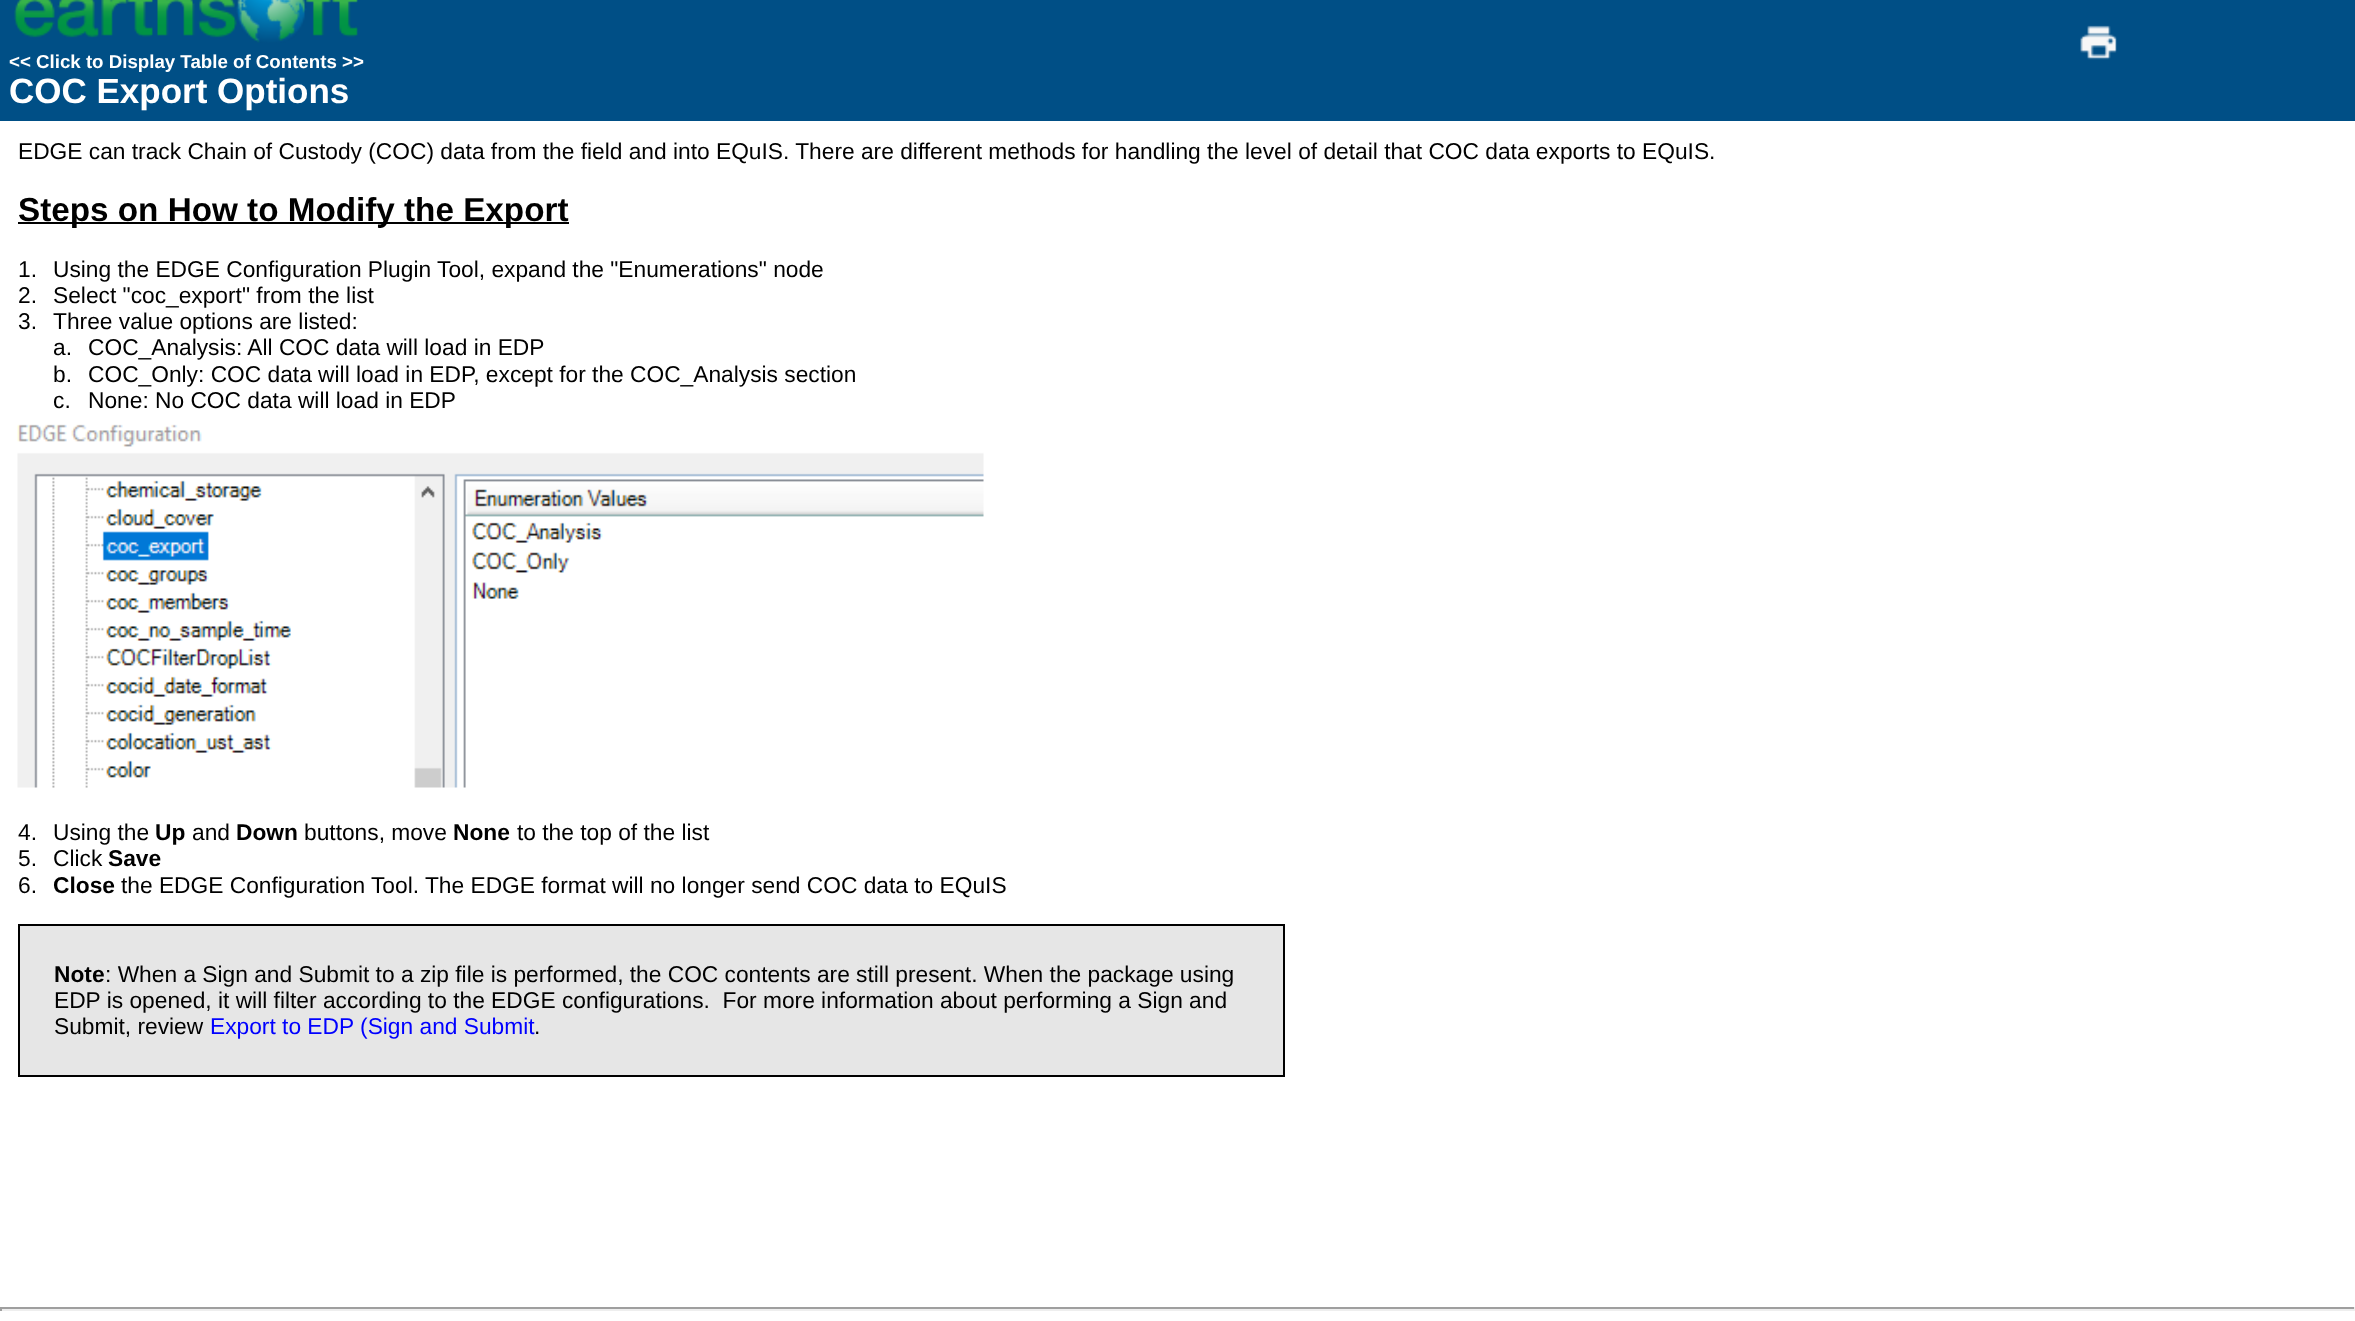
async function draw(canvas) {
  canvas.width = 2355;
  canvas.height = 1321;
  const ctx = canvas.getContext('2d');
  ctx.miterLimit = 4;
  ctx.fontKerning = 'normal';
  function label(s, x, y, font, color) {
    ctx.font = font;
    ctx.fillStyle = color;
    ctx.fillText(s, x, y);
  }
  function rect(x, y, w, h, color) {
    ctx.fillStyle = color;
    ctx.fillRect(x, y, w, h);
  }
  async function image(src, x, y, w, h) {
    const img = new Image();
    img.src = src;
    await img.decode();
    ctx.drawImage(img, x, y, w, h);
  }

  rect(0, 0, 2355, 1321, '#fff');
  rect(0, 0, 2355, 121, '#004f86');
  await image('assets/img1.png', 2080, 25, 37, 35);
  await image('assets/img2.png', 14, 0, 344, 43);
  label('<< Click to Display Table of Contents >>', 9, 68, 'bold 18.7px Liberation Sans', '#fff');
  label('COC Export Options', 9, 103, 'bold 35px Liberation Sans', '#fff');
  label('EDGE can track Chain of Custody (COC) data from the field and into EQuIS. There are different methods for handling the level of detail that COC data exports to EQuIS.', 18, 159, '22.75px Liberation Sans', '#000');
  rect(18, 222, 551, 2, '#000');
  label('Steps on How to Modify the Export', 18, 221, 'bold 33.25px Liberation Sans', '#000');
  label('1.', 18, 277, '22.75px Liberation Sans', '#000');
  label('Using the EDGE Configuration Plugin Tool, expand the "Enumerations" node', 53, 277, '22.75px Liberation Sans', '#000');
  label('2.', 18, 303, '22.75px Liberation Sans', '#000');
  label('Select "coc_export" from the list', 53, 303, '22.75px Liberation Sans', '#000');
  label('3.', 18, 329, '22.75px Liberation Sans', '#000');
  label('Three value options are listed:', 53, 329, '22.75px Liberation Sans', '#000');
  label('a.', 53, 355, '22.75px Liberation Sans', '#000');
  label('COC_Analysis: All COC data will load in EDP', 88, 355, '22.75px Liberation Sans', '#000');
  label('b.', 53, 382, '22.75px Liberation Sans', '#000');
  label('COC_Only: COC data will load in EDP, except for the COC_Analysis section', 88, 382, '22.75px Liberation Sans', '#000');
  label('c.', 53, 408, '22.75px Liberation Sans', '#000');
  label('None: No COC data will load in EDP', 88, 408, '22.75px Liberation Sans', '#000');
  await image('assets/img3.png', 17, 424, 967, 364);
  label('4.', 18, 840, '22.75px Liberation Sans', '#000');
  label('Using the', 53, 840, '22.75px Liberation Sans', '#000');
  label('Up', 155, 840, 'bold 22.75px Liberation Sans', '#000');
  label('and', 192, 840, '22.75px Liberation Sans', '#000');
  label('Down', 236, 840, 'bold 22.75px Liberation Sans', '#000');
  label('buttons, move', 304, 840, '22.75px Liberation Sans', '#000');
  label('None', 453, 840, 'bold 22.75px Liberation Sans', '#000');
  label('to the top of the list', 517, 840, '22.75px Liberation Sans', '#000');
  label('5.', 18, 866, '22.75px Liberation Sans', '#000');
  label('Click', 53, 866, '22.75px Liberation Sans', '#000');
  label('Save', 108, 866, 'bold 22.75px Liberation Sans', '#000');
  label('6.', 18, 893, '22.75px Liberation Sans', '#000');
  label('Close', 53, 893, 'bold 22.75px Liberation Sans', '#000');
  label('the EDGE Configuration Tool. The EDGE format will no longer send COC data to EQuIS', 121, 893, '22.75px Liberation Sans', '#000');
  rect(20, 926, 1263, 149, '#e6e6e6');
  rect(18, 924, 1267, 2, '#000');
  rect(1283, 924, 2, 152, '#000');
  rect(18, 1075, 1267, 2, '#000');
  rect(18, 924, 2, 152, '#000');
  label('Note', 54, 982, 'bold 22.75px Liberation Sans', '#000');
  label(': When a Sign and Submit to a zip file is performed, the COC contents are still present. When the package using', 105, 982, '22.75px Liberation Sans', '#000');
  label('EDP is opened, it will filter according to the EDGE configurations.  For more information about performing a Sign and', 54, 1008, '22.75px Liberation Sans', '#000');
  label('Submit, review', 54, 1034, '22.75px Liberation Sans', '#000');
  label('Export to EDP (Sign and Submit', 210, 1034, '22.75px Liberation Sans', '#00f');
  label('.', 534, 1034, '22.75px Liberation Sans', '#000');
  rect(0, 1307, 2355, 2, '#9f9f9f');
  rect(2354, 1307, 1, 4, '#eee');
  rect(0, 1309, 2355, 2, '#eee');
  rect(0, 1307, 2, 4, '#9f9f9f');
}

draw(document.querySelector('canvas'));
